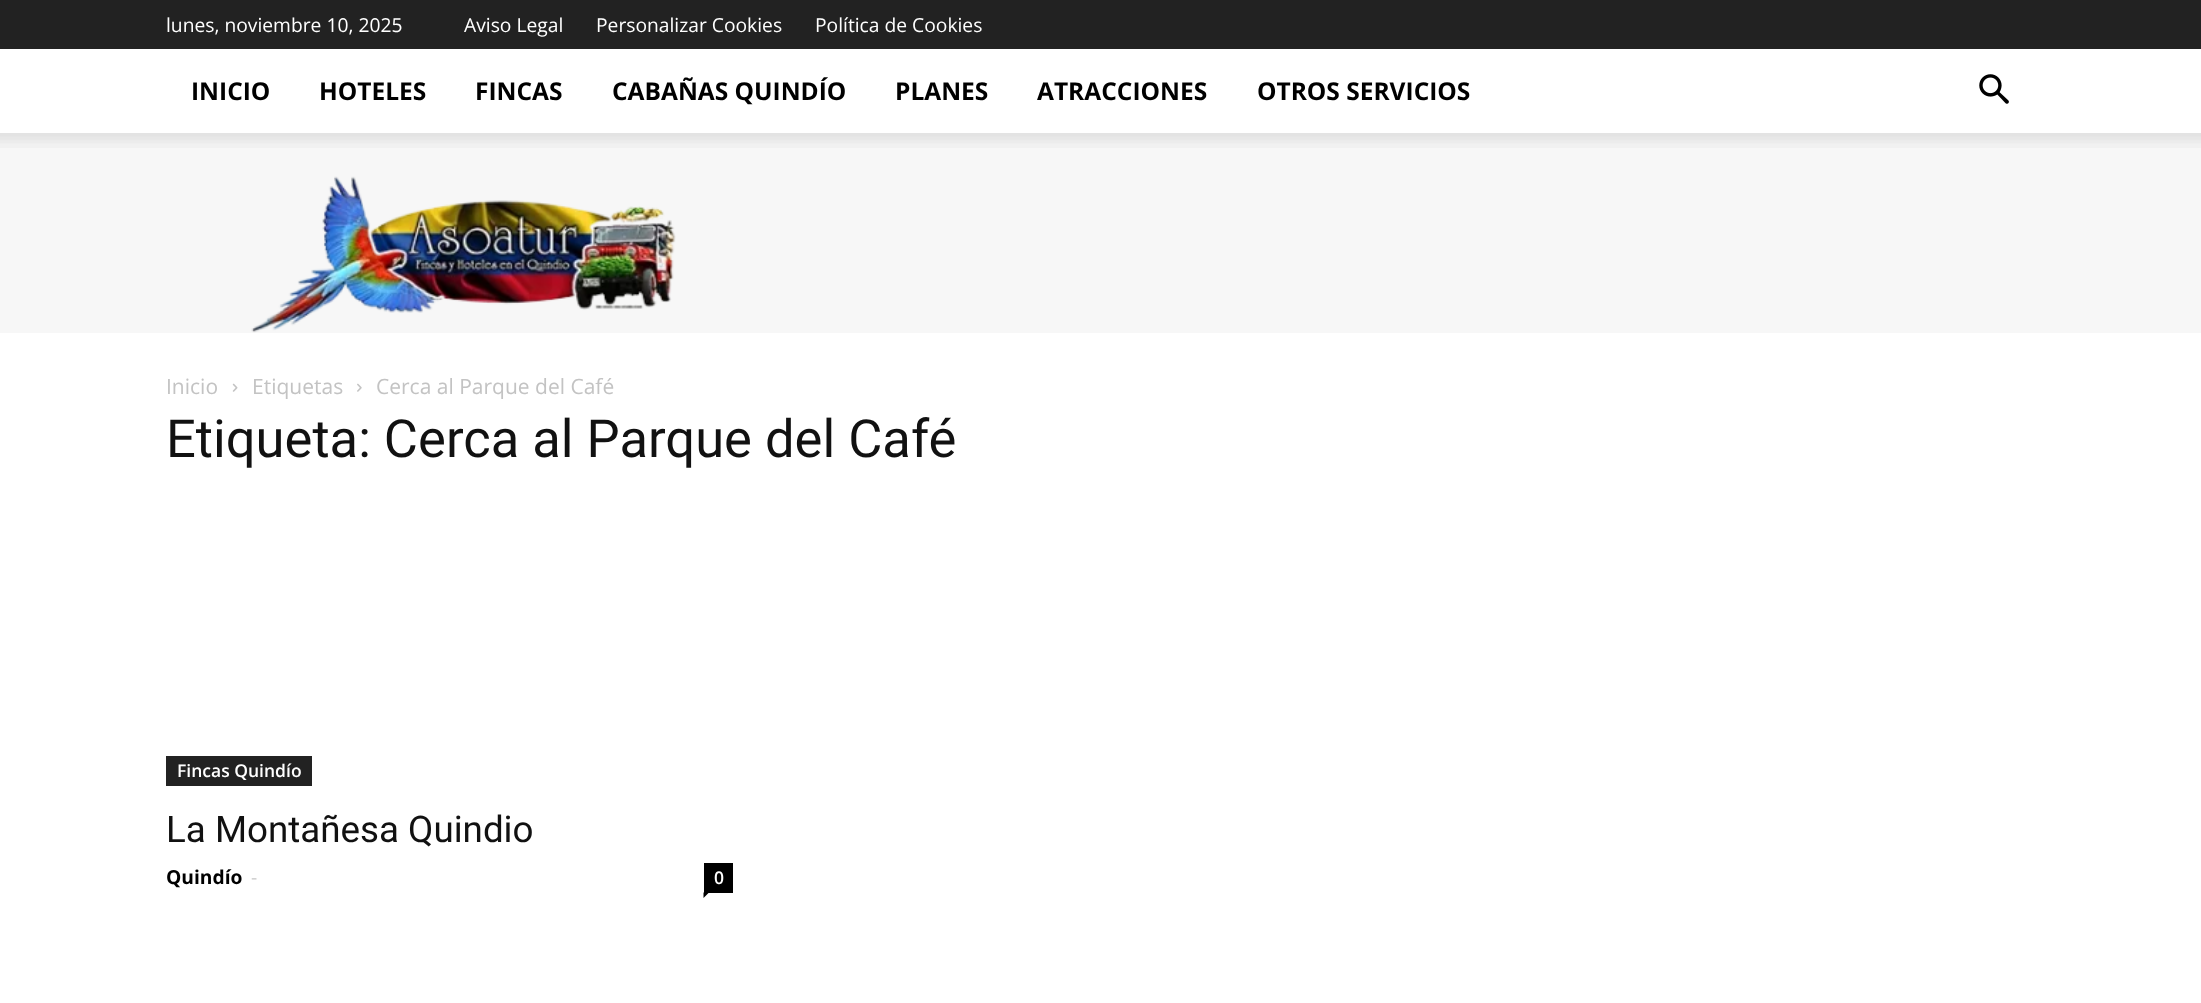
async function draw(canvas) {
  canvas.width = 2201;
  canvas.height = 1003;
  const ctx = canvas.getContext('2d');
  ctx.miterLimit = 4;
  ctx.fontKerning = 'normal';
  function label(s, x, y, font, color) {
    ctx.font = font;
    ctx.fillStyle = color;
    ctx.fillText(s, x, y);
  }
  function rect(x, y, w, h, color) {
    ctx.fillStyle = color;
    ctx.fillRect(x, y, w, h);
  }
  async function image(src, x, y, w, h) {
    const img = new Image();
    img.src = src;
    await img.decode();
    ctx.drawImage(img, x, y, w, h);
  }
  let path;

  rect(0, 0, 2201, 1003, '#fff');
  rect(0, 0, 2201, 49, '#222');
  label('lunes, noviembre 10, 2025', 166, 32, '19.25px Open Sans', '#fff');
  label('Aviso Legal', 464, 32, '19.25px Open Sans', '#fff');
  label('Personalizar Cookies', 596, 32, '19.25px Open Sans', '#fff');
  label('Política de Cookies', 815, 32, '19.25px Open Sans', '#fff');
  label('INICIO', 191, 100, 'bold 24.5px Open Sans', '#000');
  label('HOTELES', 319, 100, 'bold 24.5px Open Sans', '#000');
  label('FINCAS', 475, 100, 'bold 24.5px Open Sans', '#000');
  label('CABAÑAS QUINDÍO', 612, 100, 'bold 24.5px Open Sans', '#000');
  label('PLANES', 895, 100, 'bold 24.5px Open Sans', '#000');
  label('ATRACCIONES', 1037, 100, 'bold 24.5px Open Sans', '#000');
  label('OTROS SERVICIOS', 1257, 100, 'bold 24.5px Open Sans', '#000');
  await image('assets/img1.png', 1979, 74, 30, 30);
  rect(0, 133, 2201, 200, '#f7f7f7');
  await image('assets/img2.png', 0, 133, 2201, 15);
  await image('assets/img3.png', 251, 176, 425, 157);
  label('Inicio', 166, 394, '21px Open Sans', '#c3c3c3');
  await image('assets/img4.png', 232, 383, 6, 9);
  label('Etiquetas', 252, 394, '21px Open Sans', '#c3c3c3');
  await image('assets/img5.png', 357, 383, 5, 9);
  label('Cerca al Parque del Café', 376, 394, '21px Open Sans', '#c3c3c3');
  label('Etiqueta: Cerca al Parque del Café', 166, 457, '52.5px Roboto', '#111');
  rect(166, 756, 146, 30, '#222');
  label('Fincas Quindío', 177, 777, '600 17.5px Open Sans', '#fff');
  label('La Montañesa Quindio', 166, 842, '36.75px Roboto', '#111');
  label('Quindío', 166, 884, 'bold 19.25px Open Sans', '#000');
  label('-', 251, 884, '19.25px Open Sans', '#ccc');
  rect(704, 863, 29, 30, '#000');
  label('0', 714, 884, '600 17.5px Open Sans', '#fff');
  ctx.fillStyle = '#000';
  path = new Path2D('M703.5 892.5H709L703.5 898Z');
  ctx.fill(path);
}

draw(document.querySelector('canvas'));
